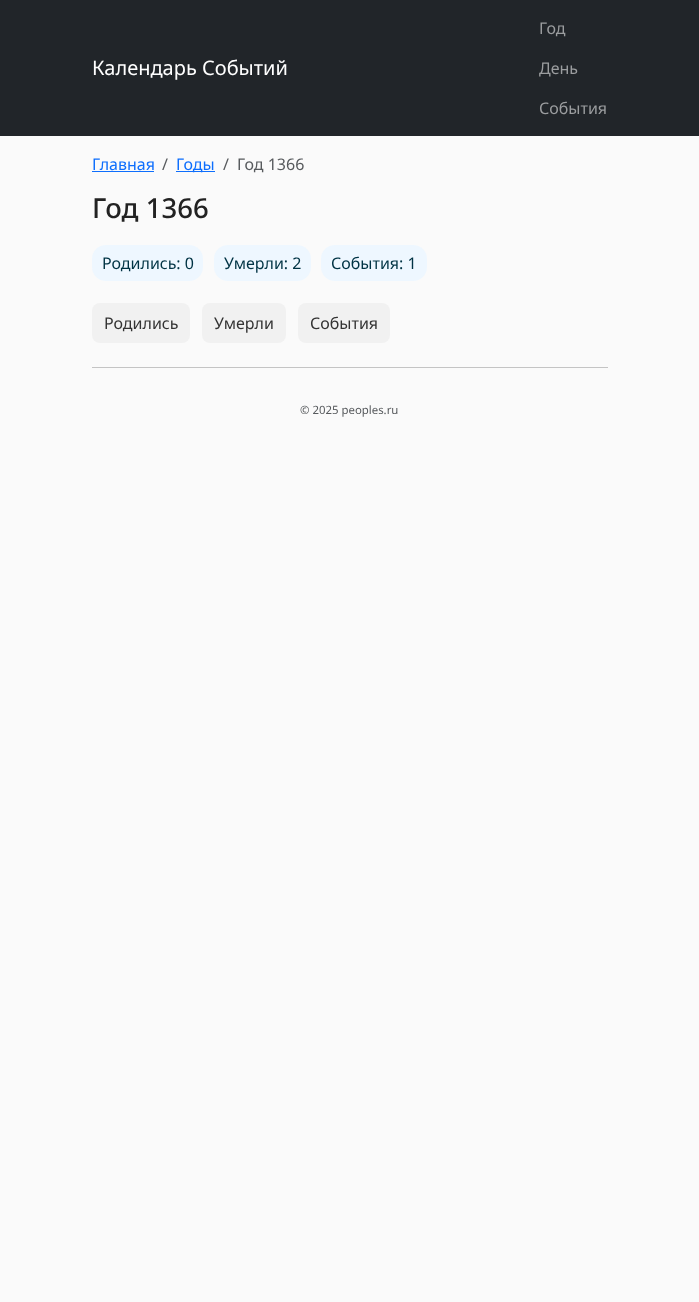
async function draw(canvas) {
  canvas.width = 699;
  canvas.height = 1302;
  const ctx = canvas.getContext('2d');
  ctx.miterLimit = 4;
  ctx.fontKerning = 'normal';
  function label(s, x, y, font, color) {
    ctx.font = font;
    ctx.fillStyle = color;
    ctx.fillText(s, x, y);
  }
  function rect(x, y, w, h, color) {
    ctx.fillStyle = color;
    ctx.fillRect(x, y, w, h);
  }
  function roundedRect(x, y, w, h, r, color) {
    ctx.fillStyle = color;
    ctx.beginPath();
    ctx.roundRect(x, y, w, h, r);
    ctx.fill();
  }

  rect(0, 0, 699, 1302, '#fafafa');
  rect(0, 0, 699, 136, '#212529');
  label('Календарь Событий', 92, 75, '20px Noto Sans', '#fff');
  label('Год', 539, 34, '16px Noto Sans', '#9b9d9f');
  label('День', 539, 74, '16px Noto Sans', '#9b9d9f');
  label('События', 539, 114, '16px Noto Sans', '#9b9d9f');
  label('Главная', 92, 170, '16px Noto Sans', '#0d6efd');
  rect(92, 171, 62, 1, '#0d6efd');
  label('/', 162, 170, '16px Noto Sans', '#575a5d');
  rect(176, 171, 39, 1, '#0d6efd');
  label('Годы', 176, 170, '16px Noto Sans', '#0d6efd');
  label('/', 223, 170, '16px Noto Sans', '#575a5d');
  label('Год 1366', 237, 170, '16px Noto Sans', '#575a5d');
  label('Год 1366', 92, 218, '500 27.5px Noto Sans', '#222');
  roundedRect(92, 245, 111, 36, 14, '#eef7ff');
  label('Родились: 0', 102, 269, '16px Noto Sans', '#034');
  roundedRect(214, 245, 97, 36, 14, '#eef7ff');
  label('Умерли: 2', 224, 269, '16px Noto Sans', '#034');
  roundedRect(321, 245, 106, 36, 14, '#eef7ff');
  label('События: 1', 331, 269, '16px Noto Sans', '#034');
  roundedRect(92, 303, 98, 40, 8, '#f1f1f1');
  label('Родились', 104, 329, '16px Noto Sans', '#333');
  roundedRect(202, 303, 84, 40, 8, '#f1f1f1');
  label('Умерли', 214, 329, '16px Noto Sans', '#333');
  roundedRect(298, 303, 92, 40, 8, '#f1f1f1');
  label('События', 310, 329, '16px Noto Sans', '#333');
  rect(92, 367, 516, 1, '#c4c4c4');
  label('© 2025 peoples.ru', 300, 414, '11.4px Noto Sans', '#575a5d');
}

draw(document.querySelector('canvas'));
